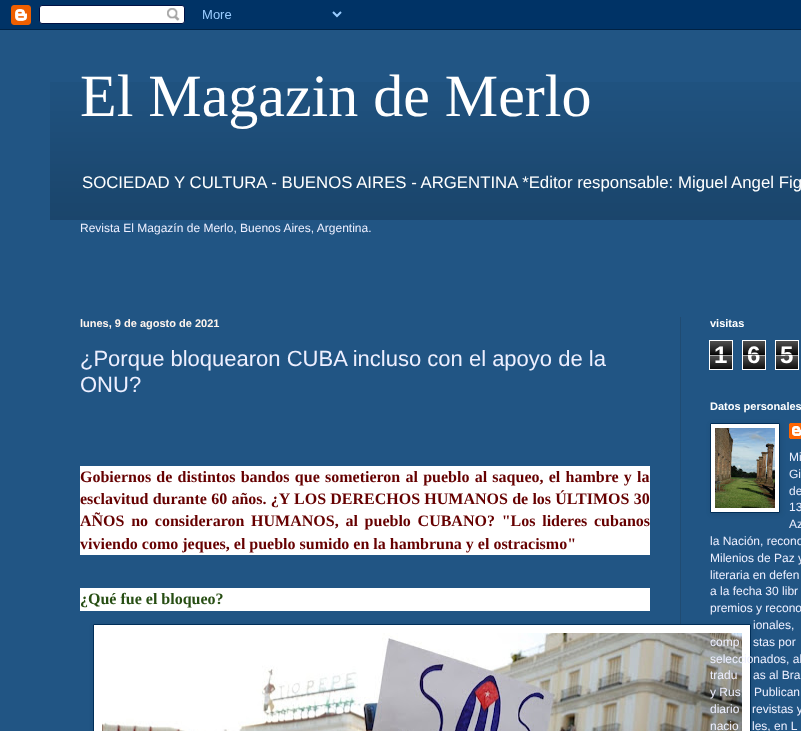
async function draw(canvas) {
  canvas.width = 801;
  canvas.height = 731;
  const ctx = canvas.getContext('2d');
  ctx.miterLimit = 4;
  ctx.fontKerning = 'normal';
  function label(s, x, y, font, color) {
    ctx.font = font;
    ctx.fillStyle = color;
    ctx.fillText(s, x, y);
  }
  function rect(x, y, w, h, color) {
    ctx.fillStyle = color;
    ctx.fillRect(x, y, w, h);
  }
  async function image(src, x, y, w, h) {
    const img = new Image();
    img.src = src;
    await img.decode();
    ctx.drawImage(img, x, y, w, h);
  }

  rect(0, 0, 801, 731, '#215584');
  await image('assets/img1.png', 0, 0, 801, 30);
  await image('assets/img2.png', 50, 82, 751, 138);
  label('El Magazin de Merlo', 80, 116, '60px Liberation Serif', '#fff');
  label('SOCIEDAD Y CULTURA - BUENOS AIRES - ARGENTINA *Editor responsable: Miguel Angel Fig', 82, 188, '16.8px Liberation Sans', '#fff');
  label('Revista El Magazín de Merlo, Buenos Aires, Argentina.', 80, 232, '12px Liberation Sans', '#edefff');
  rect(680, 317, 1, 307, '#204b72');
  label('lunes, 9 de agosto de 2021', 80, 327, 'bold 11px Liberation Sans', '#fff5ee');
  label('¿Porque bloquearon CUBA incluso con el apoyo de la', 80, 366, '22px Liberation Sans', '#edefff');
  label('ONU?', 80, 392, '22px Liberation Sans', '#edefff');
  rect(80, 466, 570, 89, '#fff');
  ctx.wordSpacing = '1.25px';
  label('Gobiernos de distintos bandos que sometieron al pueblo al saqueo, el hambre y la', 80, 482, 'bold 16px Liberation Serif', '#600');
  ctx.wordSpacing = '0.25px';
  label('esclavitud durante 60 años. ¿Y LOS DERECHOS HUMANOS de los ÚLTIMOS 30', 80, 504, 'bold 16px Liberation Serif', '#600');
  ctx.wordSpacing = '2.75px';
  label('AÑOS no consideraron HUMANOS, al pueblo CUBANO? "Los lideres cubanos', 80, 526, 'bold 16px Liberation Serif', '#600');
  ctx.wordSpacing = '0px';
  label('viviendo como jeques, el pueblo sumido en la hambruna y el ostracismo"', 80, 549, 'bold 16px Liberation Serif', '#600');
  rect(80, 588, 570, 23, '#fff');
  label('¿Qué fue el bloqueo?', 80, 604, 'bold 16px Liberation Serif', '#274e13');
  ctx.fillStyle = '#0000001a';
  ctx.filter = 'blur(2.5px)';
  ctx.beginPath();
  ctx.rect(94, 625, 658, 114);
  ctx.fill();
  ctx.filter = 'none';
  ctx.fillStyle = '#fff';
  ctx.beginPath();
  ctx.rect(93.5, 624.5, 657, 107);
  ctx.fill();
  ctx.strokeStyle = '#002e58';
  ctx.stroke();
  await image('assets/img3.png', 102, 633, 640, 98);
  label('visitas', 710, 327, 'bold 11px Liberation Sans', '#fff');
  await image('assets/img4.png', 710, 341, 22, 28);
  ctx.strokeStyle = '#fff';
  ctx.strokeRect(709.5, 340.5, 23, 29);
  label('1', 714, 363, 'bold 24px Liberation Sans', '#fff');
  rect(710, 354, 22, 1, '#000000a6');
  rect(710, 355, 22, 1, '#ffffffa6');
  await image('assets/img4.png', 743, 341, 22, 28);
  ctx.strokeRect(742.5, 340.5, 23, 29);
  label('6', 747, 363, 'bold 24px Liberation Sans', '#fff');
  rect(743, 354, 22, 1, '#000000a6');
  rect(743, 355, 22, 1, '#ffffffa6');
  await image('assets/img4.png', 776, 341, 22, 28);
  ctx.strokeRect(775.5, 340.5, 23, 29);
  label('5', 780, 363, 'bold 24px Liberation Sans', '#fff');
  rect(776, 354, 22, 1, '#000000a6');
  rect(776, 355, 22, 1, '#ffffffa6');
  label('Datos personales', 710, 410, 'bold 11px Liberation Sans', '#fff');
  await image('assets/img6.png', 789, 423, 12, 16);
  ctx.fillStyle = '#0000001a';
  ctx.filter = 'blur(2.5px)';
  ctx.beginPath();
  ctx.rect(711, 424, 70, 90);
  ctx.fill();
  ctx.filter = 'none';
  ctx.fillStyle = '#fff';
  ctx.beginPath();
  ctx.rect(710.5, 423.5, 69, 89);
  ctx.fill();
  ctx.strokeStyle = '#002e58';
  ctx.stroke();
  await image('assets/img5.png', 715, 428, 60, 80);
  label('Mi', 789, 461, '12px Liberation Sans', '#edefff');
  label('Gi', 789, 478, '12px Liberation Sans', '#edefff');
  label('de', 789, 495, '12px Liberation Sans', '#edefff');
  label('13', 789, 511, '12px Liberation Sans', '#edefff');
  label('Az', 789, 528, '12px Liberation Sans', '#edefff');
  label('la Nación, recono', 710, 545, '12px Liberation Sans', '#edefff');
  label('Milenios de Paz y', 710, 562, '12px Liberation Sans', '#edefff');
  label('literaria en defen', 710, 579, '12px Liberation Sans', '#edefff');
  label('a la fecha 30 libr', 710, 595, '12px Liberation Sans', '#edefff');
  label('premios y recono', 710, 612, '12px Liberation Sans', '#edefff');
  label('ionales,', 753, 629, '12px Liberation Sans', '#edefff');
  label('comp', 710, 646, '12px Liberation Sans', '#edefff');
  label('stas por', 753, 646, '12px Liberation Sans', '#edefff');
  label('seleccionados, al', 710, 663, '12px Liberation Sans', '#edefff');
  label('tradu', 710, 679, '12px Liberation Sans', '#edefff');
  label('as al Bra', 753, 679, '12px Liberation Sans', '#edefff');
  label('y Rus', 710, 696, '12px Liberation Sans', '#edefff');
  label('Publican', 754, 696, '12px Liberation Sans', '#edefff');
  label('diario', 710, 713, '12px Liberation Sans', '#edefff');
  label('revistas y', 752, 713, '12px Liberation Sans', '#edefff');
  label('nacio', 710, 730, '12px Liberation Sans', '#edefff');
  label('les, en L', 752, 730, '12px Liberation Sans', '#edefff');
}

draw(document.querySelector('canvas'));
